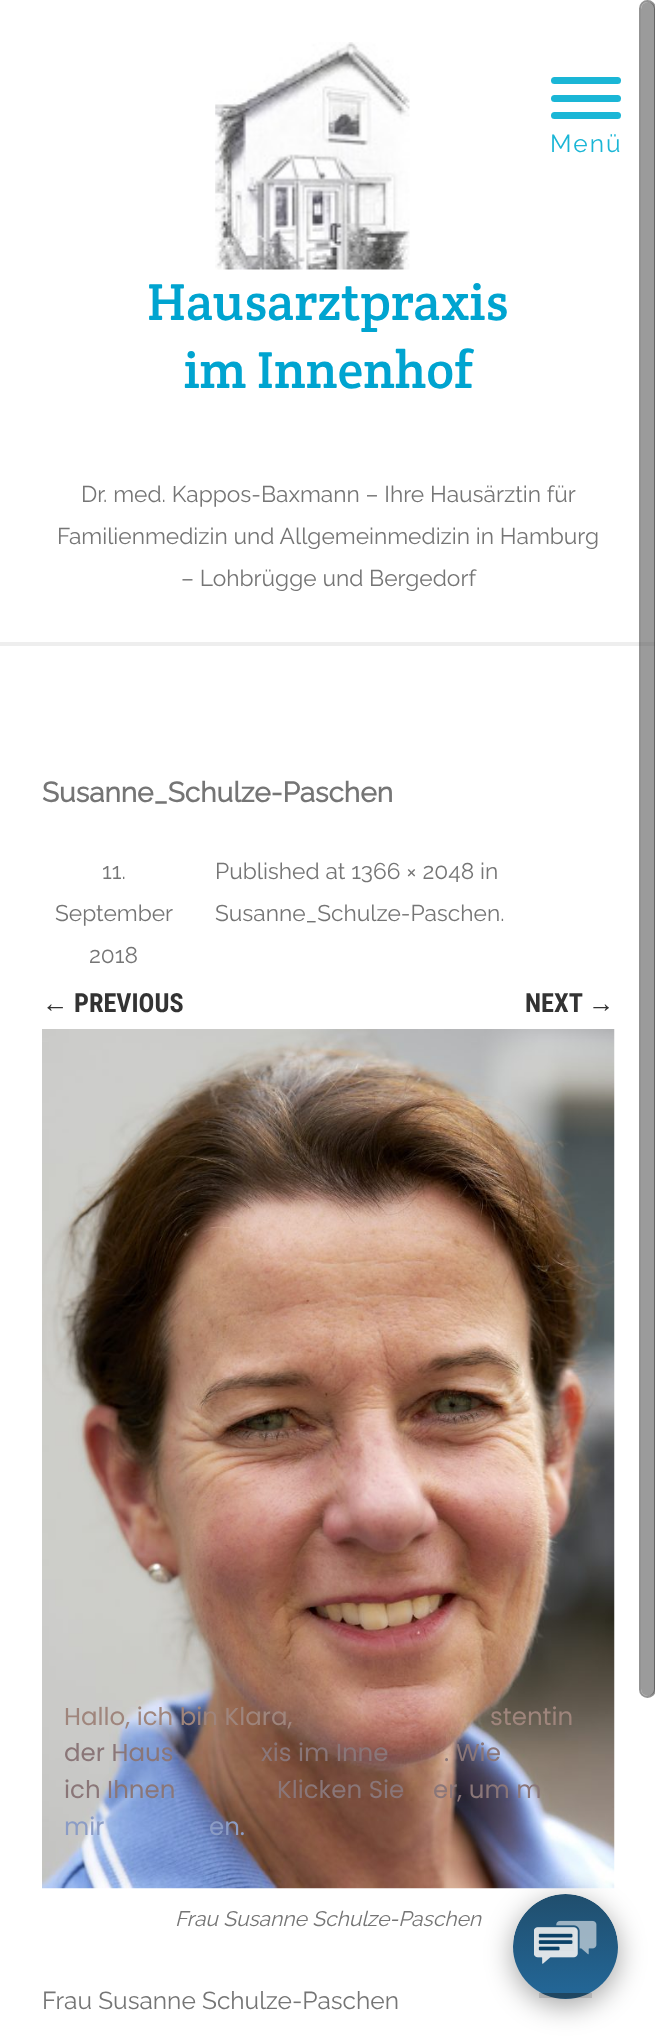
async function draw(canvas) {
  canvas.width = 655;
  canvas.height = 2036;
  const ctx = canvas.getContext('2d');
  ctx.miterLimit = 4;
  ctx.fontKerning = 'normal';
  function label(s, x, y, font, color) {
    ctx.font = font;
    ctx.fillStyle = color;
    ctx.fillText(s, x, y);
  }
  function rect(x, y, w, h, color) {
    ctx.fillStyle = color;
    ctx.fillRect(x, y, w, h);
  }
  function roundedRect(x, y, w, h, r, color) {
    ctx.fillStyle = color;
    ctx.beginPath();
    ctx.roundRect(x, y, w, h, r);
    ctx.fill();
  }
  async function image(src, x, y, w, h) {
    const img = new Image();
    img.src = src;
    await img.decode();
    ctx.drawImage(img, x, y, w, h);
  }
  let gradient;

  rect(0, 0, 655, 2036, '#fff');
  roundedRect(551, 77, 70, 7, 3.5, '#1ab6d6');
  roundedRect(551, 95, 70, 7, 3.5, '#1ab6d6');
  roundedRect(551, 112, 70, 7, 3.5, '#1ab6d6');
  ctx.letterSpacing = '2px';
  label('Menü', 550, 152, '100 24.5px Raleway', '#1ab6d6');
  await image('assets/img1.png', 215, 42, 195, 228);
  ctx.letterSpacing = '0px';
  label('Hausarztpraxis', 147, 320, '52.5px Crete Round', '#00a4d0');
  label('im Innenhof', 184, 388, '52.5px Crete Round', '#00a4d0');
  label('Dr. med. Kappos-Baxmann – Ihre Hausärztin für', 81, 502, '100 22.75px Raleway', '#757575');
  label('Familienmedizin und Allgemeinmedizin in Hamburg', 57, 544, '100 22.75px Raleway', '#757575');
  label('– Lohbrügge und Bergedorf', 181, 586, '100 22.75px Raleway', '#757575');
  rect(0, 642, 655, 4, '#eee');
  label('Susanne_Schulze-Paschen', 42, 802, 'bold 28px Raleway', '#757575');
  label('11.', 102, 879, '100 22.75px Raleway', '#757575');
  label('September', 55, 921, '100 22.75px Raleway', '#757575');
  label('2018', 89, 963, '100 22.75px Raleway', '#757575');
  label('Published at 1366 × 2048 in', 215, 879, '100 22.75px Raleway', '#757575');
  label('Susanne_Schulze-Paschen.', 215, 921, '100 22.75px Raleway', '#757575');
  label('←', 42, 1012, 'bold 26.25px Liberation Sans', '#333');
  label('PREVIOUS', 74, 1012, 'bold 26.25px Roboto Condensed', '#333');
  label('NEXT', 525, 1012, 'bold 26.25px Roboto Condensed', '#333');
  label('→', 588, 1012, 'bold 26.25px Liberation Sans', '#333');
  await image('assets/img2.png', 42, 1029, 573, 860);
  label('Frau Susanne Schulze-Paschen', 175, 1926, 'italic 100 21px Raleway', '#757575');
  label('Frau Susanne Schulze-Paschen', 42, 2009, '100 24.5px Raleway', '#757575');
  roundedRect(641, 2, 14, 1694, 7, '#42424287');
  ctx.beginPath();
  ctx.roundRect(640, 1, 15, 1696, 7.5);
  ctx.strokeStyle = '#33333387';
  ctx.lineWidth = 2;
  ctx.stroke();
  label('Hallo, ich bin Klara,', 64, 1725, '24.5px Poppins', '#9f857c');
  label('stentin', 490, 1725, '24.5px Poppins', '#9f857c');
  label('der Haus', 64, 1761, '24.5px Poppins', '#8a7678');
  label('xis im Inne', 261, 1761, '24.5px Poppins', '#8a7678');
  label('. Wie', 444, 1761, '24.5px Poppins', '#8a7678');
  label('ich Ihnen', 64, 1798, '24.5px Poppins', '#8a7678');
  label('Klicken Sie', 277, 1798, '24.5px Poppins', '#8a7678');
  label('er, um m', 433, 1798, '24.5px Poppins', '#8a7678');
  label('mir', 64, 1835, '24.5px Poppins', '#8b9cc5');
  label('en.', 209, 1835, '24.5px Poppins', '#8b9cc5');
  ctx.fillStyle = '#0000005c';
  ctx.filter = 'blur(14px)';
  ctx.beginPath();
  ctx.roundRect(513, 1901, 105, 105, 52.5);
  ctx.fill();
  ctx.filter = 'none';
  ctx.save();
  ctx.beginPath();
  ctx.roundRect(513, 1894, 105, 105, 52.5);
  ctx.clip();
  gradient = ctx.createLinearGradient(565, 1993, 565, 1894);
  gradient.addColorStop(0, '#236696');
  gradient.addColorStop(1, '#204e6d');
  ctx.fillStyle = gradient;
  ctx.beginPath();
  ctx.roundRect(513, 1894, 105, 99, [52.5, 52.5, 0, 0]);
  ctx.fill();
  gradient = ctx.createLinearGradient(565, 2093, 565, 1993);
  gradient.addColorStop(0, '#236696');
  gradient.addColorStop(1, '#204e6d');
  ctx.fillStyle = gradient;
  ctx.fillRect(541, 1993, 49, 6);
  ctx.restore();
  rect(539, 1993, 53, 5, '#1a1a1a26');
  await image('assets/img3.png', 534, 1920, 63, 44);
}

draw(document.querySelector('canvas'));
